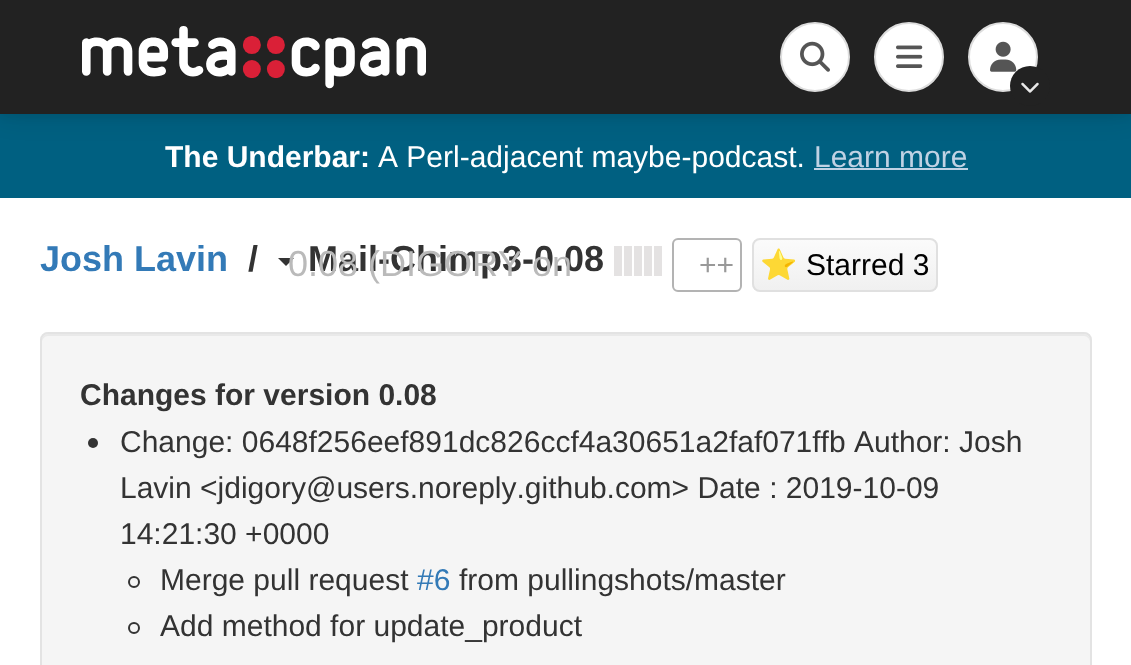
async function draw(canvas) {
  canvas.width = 1131;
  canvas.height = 665;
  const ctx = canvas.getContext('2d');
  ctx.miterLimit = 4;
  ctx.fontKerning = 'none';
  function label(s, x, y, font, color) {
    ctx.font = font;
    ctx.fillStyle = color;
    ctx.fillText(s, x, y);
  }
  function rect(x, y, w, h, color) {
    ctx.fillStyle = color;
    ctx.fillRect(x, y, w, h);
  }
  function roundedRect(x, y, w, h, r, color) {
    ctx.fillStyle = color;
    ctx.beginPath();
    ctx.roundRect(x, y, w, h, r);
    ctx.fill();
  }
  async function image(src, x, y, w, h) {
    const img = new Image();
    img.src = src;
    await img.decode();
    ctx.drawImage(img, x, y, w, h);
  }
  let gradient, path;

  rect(0, 0, 1131, 665, '#fff');
  rect(0, 114, 1131, 84, '#006081');
  ctx.fillStyle = '#0000000f';
  ctx.filter = 'blur(5px)';
  ctx.beginPath();
  ctx.rect(0, 2, 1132, 114);
  ctx.fill();
  ctx.filter = 'none';
  ctx.fillStyle = '#0000001a';
  ctx.filter = 'blur(13px)';
  ctx.beginPath();
  ctx.rect(0, 2, 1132, 114);
  ctx.fill();
  ctx.filter = 'none';
  rect(0, 0, 1131, 114, '#222');
  await image('assets/img1.png', 82, 26, 344, 63);
  ctx.fillStyle = '#fff';
  ctx.beginPath();
  ctx.arc(815, 57, 34, 0, 2 * Math.PI);
  ctx.fill();
  ctx.strokeStyle = '#ddd';
  ctx.lineWidth = 2;
  ctx.stroke();
  await image('assets/img2.png', 800, 41, 30, 31);
  ctx.beginPath();
  ctx.arc(909, 57, 34, 0, 2 * Math.PI);
  ctx.fill();
  ctx.stroke();
  await image('assets/img3.png', 896, 45, 27, 23);
  ctx.beginPath();
  ctx.arc(1003, 57, 34, 0, 2 * Math.PI);
  ctx.fill();
  ctx.stroke();
  await image('assets/img4.png', 990, 41, 27, 31);
  ctx.fillStyle = '#222';
  ctx.beginPath();
  ctx.arc(1030, 86, 20, 0, 2 * Math.PI);
  ctx.fill();
  await image('assets/img5.png', 1021, 82, 18, 11);
  label('The Underbar:', 165, 167, 'bold 30px Liberation Sans', '#fff');
  label('A Perl-adjacent maybe-podcast.', 378, 167, '30px Liberation Sans', '#fff');
  label('Learn more', 814, 167, '30px Liberation Sans', '#c0d2e4');
  rect(814, 168, 154, 2, '#c0d2e4');
  label('Josh Lavin', 40, 271, 'bold 36px Liberation Sans', '#337ab7');
  label('/', 248, 271, 'bold 36px Liberation Sans', '#333');
  label('Mail-Chimp3-0.08', 308, 271, 'bold 36px Liberation Sans', '#333');
  path = new Path2D('M278 258H294L286 266Z');
  ctx.fill(path);
  label('0.08 (DIGORY on', 288, 276, '36px Liberation Sans', '#bababa');
  rect(614, 246, 8, 30, '#e4e2e2');
  rect(624, 246, 8, 30, '#e4e2e2');
  rect(634, 246, 8, 30, '#e4e2e2');
  rect(644, 246, 8, 30, '#e4e2e2');
  rect(654, 246, 8, 30, '#e4e2e2');
  ctx.beginPath();
  ctx.roundRect(673, 239, 68, 52, 5);
  ctx.strokeStyle = '#b3b3b3';
  ctx.stroke();
  label('++', 699, 275, '30px Liberation Sans', '#999');
  ctx.save();
  ctx.beginPath();
  ctx.roundRect(752, 238, 186, 54, 8);
  ctx.clip();
  gradient = ctx.createLinearGradient(845, 240, 845, 290);
  gradient.addColorStop(0, '#fbfbfb');
  gradient.addColorStop(1, '#f0f0f0');
  ctx.fillStyle = gradient;
  ctx.fillRect(752, 240, 186, 50);
  ctx.restore();
  ctx.beginPath();
  ctx.roundRect(753, 239, 184, 52, 7);
  ctx.strokeStyle = '#e0e0e0';
  ctx.stroke();
  label('⭐', 760, 275, '30px Noto Color Emoji', '#000');
  label('Starred 3', 806, 275, '30px Liberation Sans', '#000');
  roundedRect(40, 332, 1052, 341, 8, '#f5f5f5');
  ctx.fillStyle = '#e9e9e9';
  path = new Path2D('M48 336H1084C1087 336 1090 339 1090 342V340C1090 337 1087 334 1084 334H48C45 334 42 337 42 340V342C42 339 45 336 48 336Z');
  ctx.fill(path);
  ctx.beginPath();
  ctx.roundRect(41, 333, 1050, 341, 7);
  ctx.strokeStyle = '#e3e3e3';
  ctx.stroke();
  label('Changes for version 0.08', 80, 405, 'bold 30px Liberation Sans', '#333');
  ctx.beginPath();
  ctx.arc(93, 443, 5, 0, 2 * Math.PI);
  ctx.fill();
  label('Change: 0648f256eef891dc826ccf4a30651a2faf071ffb Author: Josh', 120, 452, '30px Liberation Sans', '#333');
  label('Lavin <jdigory@users.noreply.github.com> Date : 2019-10-09', 120, 498, '30px Liberation Sans', '#333');
  label('14:21:30 +0000', 120, 544, '30px Liberation Sans', '#333');
  ctx.beginPath();
  ctx.arc(134, 582, 5, 0, 2 * Math.PI);
  ctx.strokeStyle = '#333';
  ctx.stroke();
  label('Merge pull request', 160, 590, '30px Liberation Sans', '#333');
  label('#6', 417, 590, '30px Liberation Sans', '#337ab7');
  label('from pullingshots/master', 459, 590, '30px Liberation Sans', '#333');
  ctx.beginPath();
  ctx.arc(134, 628, 5, 0, 2 * Math.PI);
  ctx.stroke();
  label('Add method for update_product', 160, 636, '30px Liberation Sans', '#333');
}

draw(document.querySelector('canvas'));
